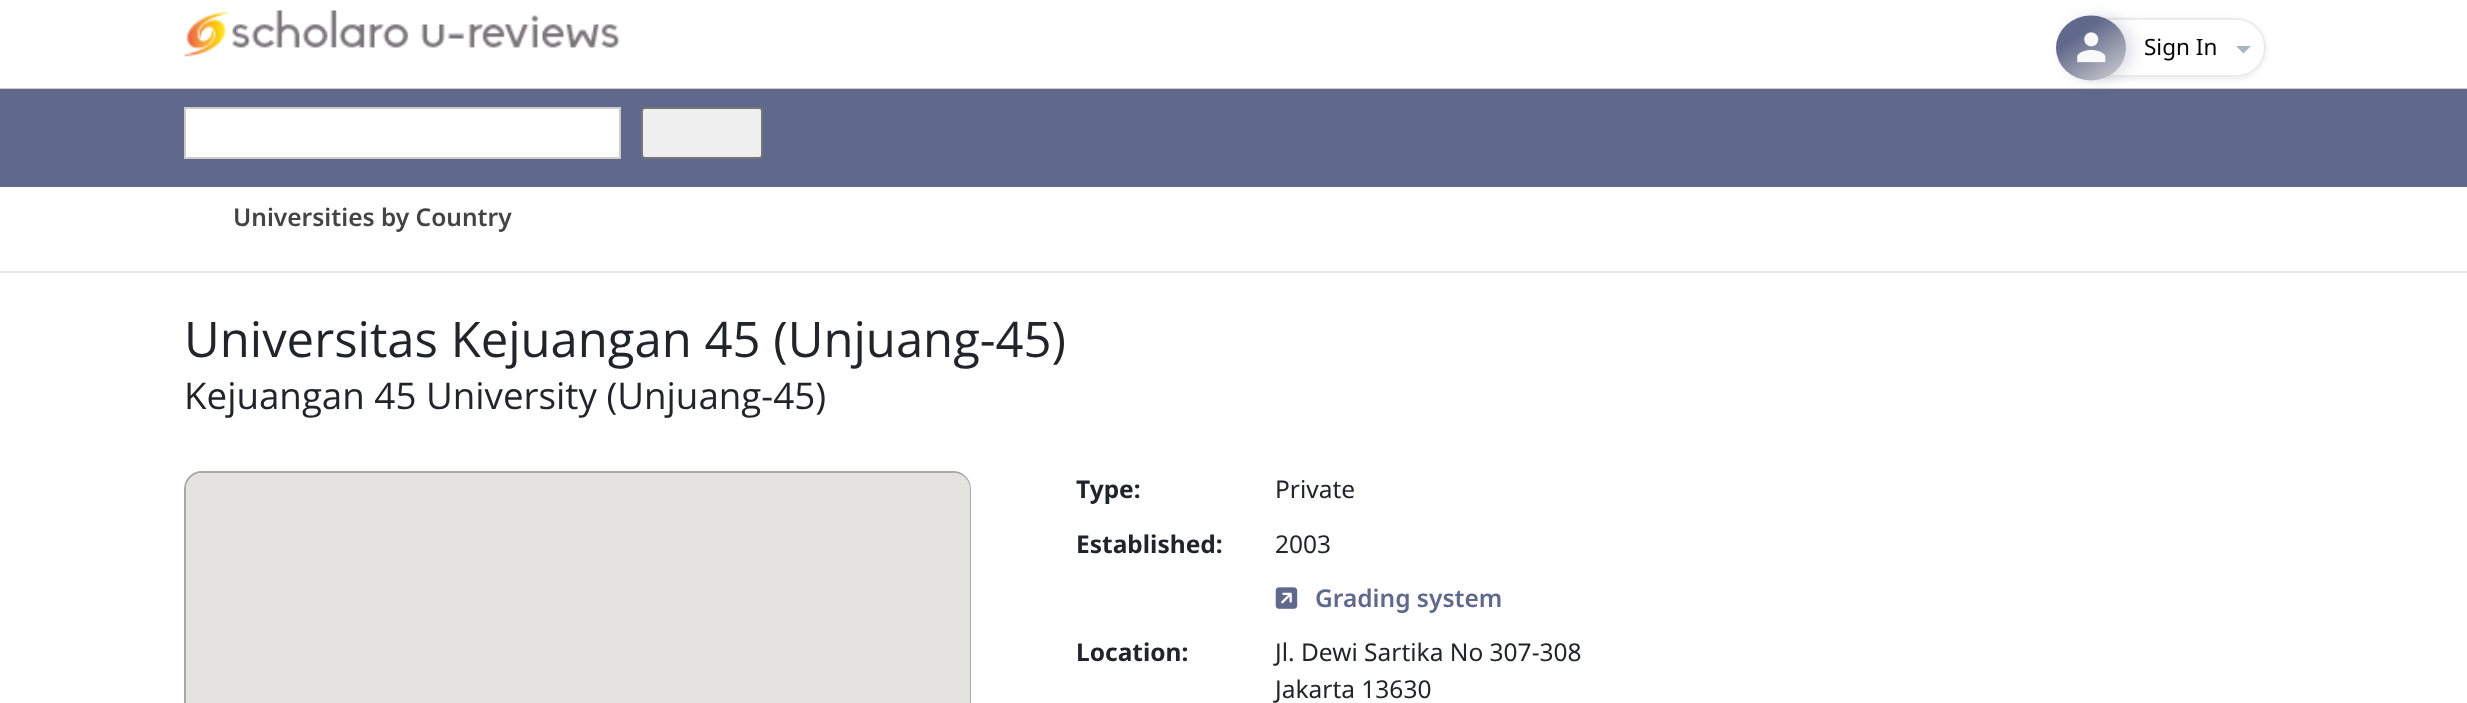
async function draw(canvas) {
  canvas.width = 2467;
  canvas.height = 703;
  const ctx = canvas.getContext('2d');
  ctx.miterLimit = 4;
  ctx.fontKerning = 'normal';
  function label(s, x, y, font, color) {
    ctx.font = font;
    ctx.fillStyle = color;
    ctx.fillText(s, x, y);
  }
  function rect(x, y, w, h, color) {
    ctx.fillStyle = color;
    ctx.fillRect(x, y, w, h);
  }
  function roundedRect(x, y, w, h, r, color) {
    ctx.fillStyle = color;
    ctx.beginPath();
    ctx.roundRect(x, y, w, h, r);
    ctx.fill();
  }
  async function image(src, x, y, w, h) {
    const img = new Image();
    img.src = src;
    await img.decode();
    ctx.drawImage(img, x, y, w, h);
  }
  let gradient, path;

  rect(0, 0, 2467, 703, '#fff');
  rect(0, 88, 2467, 1, '#ccc');
  await image('assets/img1.png', 183, 10, 437, 47);
  ctx.save();
  path = new Path2D('M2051 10H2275V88H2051ZM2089.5 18H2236.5C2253 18 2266 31 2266 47.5C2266 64 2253 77 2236.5 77H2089.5C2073 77 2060 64 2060 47.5C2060 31 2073 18 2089.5 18Z');
  ctx.clip(path, 'evenodd');
  ctx.fillStyle = '#00000014';
  ctx.filter = 'blur(2.5px)';
  ctx.beginPath();
  ctx.roundRect(2060, 19, 206, 60, 30);
  ctx.fill();
  ctx.filter = 'none';
  ctx.restore();
  ctx.beginPath();
  ctx.roundRect(2061, 19, 204, 57, 28.5);
  ctx.strokeStyle = '#d3d3d373';
  ctx.lineWidth = 2;
  ctx.stroke();
  rect(0, 89, 2467, 98, '#60688b');
  ctx.fillStyle = '#60688b33';
  ctx.filter = 'blur(7px)';
  ctx.beginPath();
  ctx.roundRect(2063, 16, 70, 65, 32.5);
  ctx.fill();
  ctx.filter = 'none';
  gradient = ctx.createLinearGradient(2065, 10, 2118, 86);
  gradient.addColorStop(0.3, '#60688b');
  gradient.addColorStop(1, '#d3d3d3');
  ctx.fillStyle = gradient;
  ctx.beginPath();
  ctx.ellipse(2091, 48, 35, 32.5, 0, 0, 2 * Math.PI);
  ctx.fill();
  await image('assets/img2.png', 2077, 32, 29, 31);
  label('Sign In', 2144, 55, '22.5px Noto Sans', '#000');
  ctx.fillStyle = '#adb5bd';
  path = new Path2D('M2236 46L2243.5 53.5L2251 46Z');
  ctx.fill(path);
  ctx.fillStyle = '#fff';
  ctx.beginPath();
  ctx.rect(185, 108, 435, 50);
  ctx.fill();
  ctx.strokeStyle = '#ccc';
  ctx.stroke();
  ctx.fillStyle = '#efefef';
  ctx.beginPath();
  ctx.roundRect(642, 108, 120, 50, 3);
  ctx.fill();
  ctx.strokeStyle = '#767676';
  ctx.stroke();
  rect(0, 271, 2467, 2, '#e6e6e6');
  label('Universities by Country', 233, 226, '600 24.5px Noto Sans', '#444');
  label('Universitas Kejuangan 45 (Unjuang-45)', 184, 357, '49px Open Sans', '#212529');
  label('Kejuangan 45 University (Unjuang-45)', 184, 409, '36.75px Open Sans', '#212529');
  ctx.beginPath();
  ctx.roundRect(185, 472, 785, 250, 17);
  ctx.strokeStyle = '#a9a9a9';
  ctx.stroke();
  roundedRect(186, 473, 784, 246, 16, '#e5e3df');
  label('Type:', 1076, 498, 'bold 24.5px Noto Sans', '#212529');
  label('Private', 1275, 498, '24.5px Noto Sans', '#212529');
  label('Established:', 1076, 553, 'bold 24.5px Noto Sans', '#212529');
  label('2003', 1275, 553, '24.5px Noto Sans', '#212529');
  await image('assets/img3.png', 1275, 587, 23, 22);
  label('Grading system', 1315, 607, '600 24.5px Noto Sans', '#60688b');
  label('Location:', 1076, 661, 'bold 24.5px Noto Sans', '#212529');
  label('Jl. Dewi Sartika No 307-308', 1275, 661, '24.5px Noto Sans', '#212529');
  label('Jakarta 13630', 1275, 698, '24.5px Noto Sans', '#212529');
}

draw(document.querySelector('canvas'));
